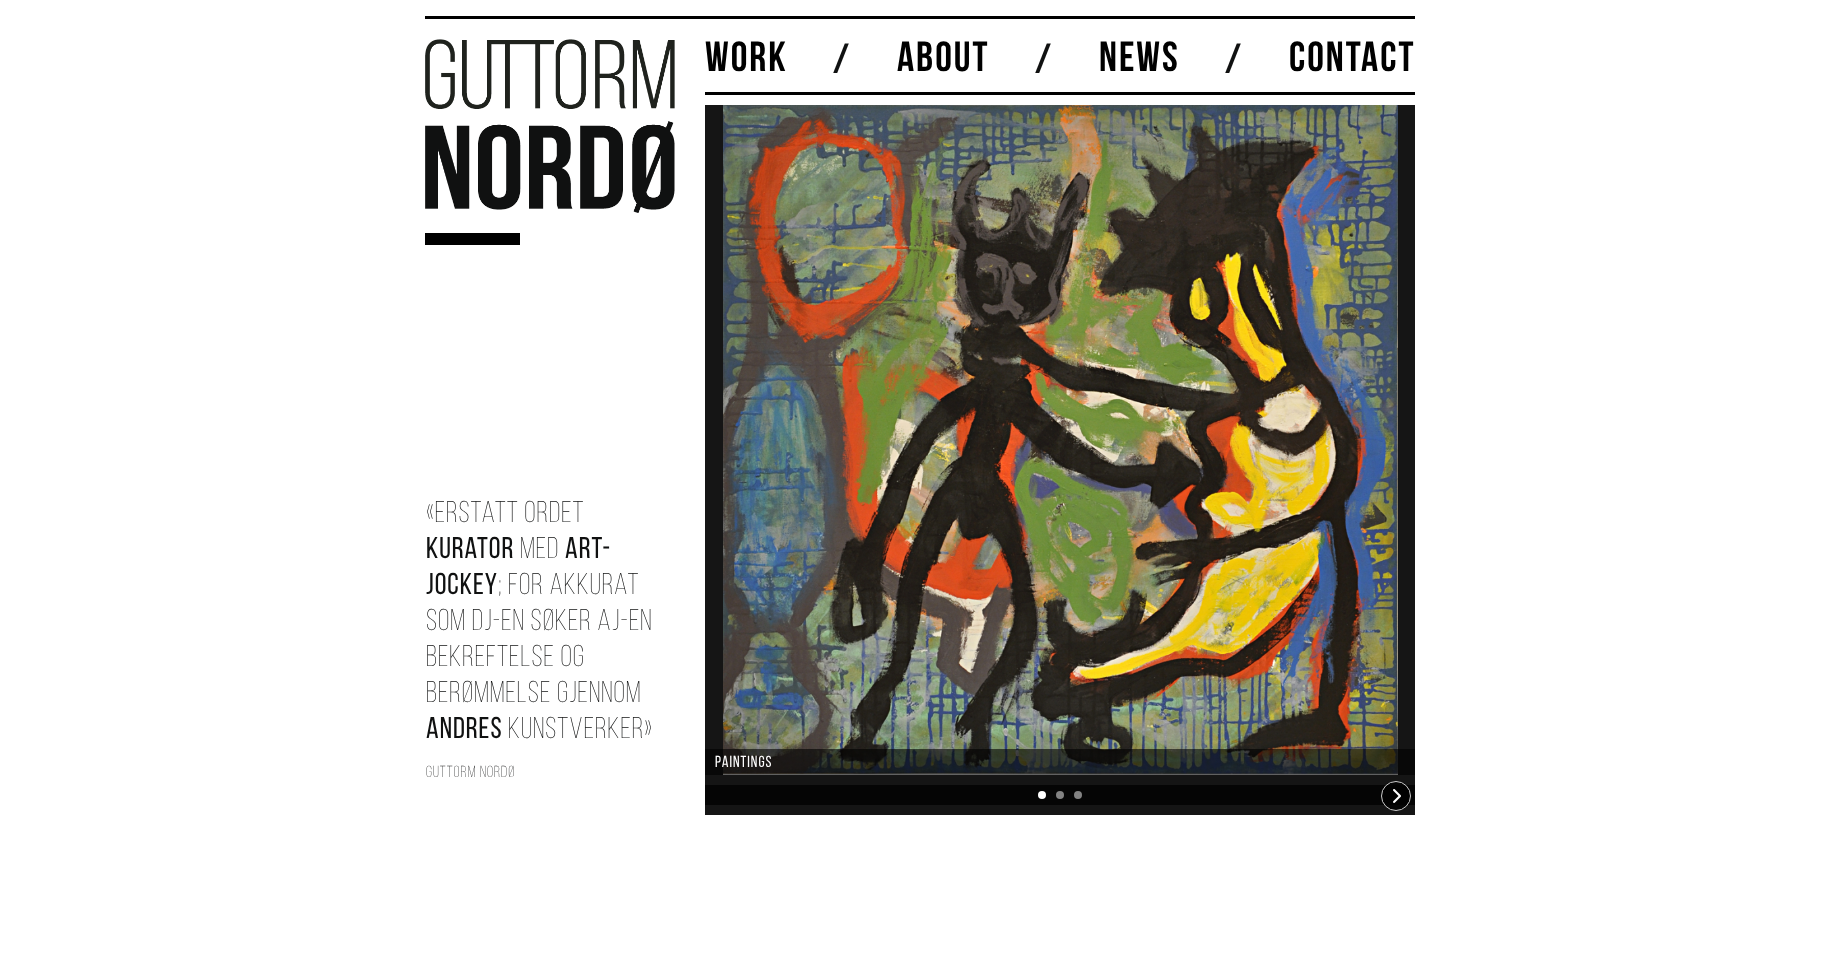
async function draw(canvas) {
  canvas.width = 1840;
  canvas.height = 960;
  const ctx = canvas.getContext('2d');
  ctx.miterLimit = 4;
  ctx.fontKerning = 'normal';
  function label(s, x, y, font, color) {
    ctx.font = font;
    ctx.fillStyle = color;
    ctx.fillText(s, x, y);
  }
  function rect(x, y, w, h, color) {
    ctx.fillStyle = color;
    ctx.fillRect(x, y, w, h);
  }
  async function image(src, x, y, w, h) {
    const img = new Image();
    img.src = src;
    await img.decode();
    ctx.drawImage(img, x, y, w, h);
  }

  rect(0, 0, 1840, 960, '#fff');
  rect(425, 16, 990, 3, '#000');
  await image('assets/img1.png', 425, 39, 250, 174);
  rect(425, 233, 95, 12, '#000');
  ctx.letterSpacing = '1px';
  label('«Erstatt ordet', 426, 522, '300 30px Bebas Neue', '#101111');
  label('kurator', 426, 558, '30px Bebas Neue', '#101111');
  label('med', 520, 558, '300 30px Bebas Neue', '#101111');
  label('Art-', 565, 558, '30px Bebas Neue', '#101111');
  label('Jockey', 426, 594, '30px Bebas Neue', '#101111');
  label('; for akkurat', 498, 594, '300 30px Bebas Neue', '#101111');
  label('som DJ-en søker AJ-en', 426, 630, '300 30px Bebas Neue', '#101111');
  label('bekreftelse og', 426, 666, '300 30px Bebas Neue', '#101111');
  label('berømmelse gjennom', 426, 702, '300 30px Bebas Neue', '#101111');
  label('andres', 426, 738, '30px Bebas Neue', '#101111');
  label('kunstverker»', 508, 738, '300 30px Bebas Neue', '#101111');
  label('Guttorm Nordø', 426, 777, '300 16px Bebas Neue', '#101111');
  rect(705, 92, 710, 3, '#000');
  ctx.letterSpacing = '2px';
  label('WORK', 705, 71, 'bold 42px Bebas Neue', '#000');
  label('/', 833, 73, 'bold 42px Bebas Neue', '#101111');
  label('ABOUT', 897, 71, 'bold 42px Bebas Neue', '#000');
  label('/', 1035, 73, 'bold 42px Bebas Neue', '#101111');
  label('NEWS', 1099, 71, 'bold 42px Bebas Neue', '#000');
  label('/', 1225, 73, 'bold 42px Bebas Neue', '#101111');
  label('CONTACT', 1289, 71, 'bold 42px Bebas Neue', '#000');
  rect(705, 105, 710, 710, '#151515');
  await image('assets/img2.png', 723, 105, 675, 670);
  rect(705, 749, 710, 26, '#00000099');
  ctx.letterSpacing = '1px';
  label('Paintings', 715, 767, '16px Bebas Neue', '#fff');
  rect(705, 785, 710, 20, '#050505');
  ctx.fillStyle = '#000000bf';
  ctx.beginPath();
  ctx.arc(1396, 796, 15, 0, 2 * Math.PI);
  ctx.fill();
  await image('assets/img3.png', 1393, 789, 8, 14);
  ctx.beginPath();
  ctx.arc(1396, 796, 14.5, 0, 2 * Math.PI);
  ctx.strokeStyle = '#ccc';
  ctx.stroke();
  ctx.fillStyle = '#fff';
  ctx.beginPath();
  ctx.arc(1042, 795, 4, 0, 2 * Math.PI);
  ctx.fill();
  ctx.fillStyle = '#828282';
  ctx.beginPath();
  ctx.arc(1060, 795, 4, 0, 2 * Math.PI);
  ctx.fill();
  ctx.beginPath();
  ctx.arc(1078, 795, 4, 0, 2 * Math.PI);
  ctx.fill();
}

draw(document.querySelector('canvas'));
